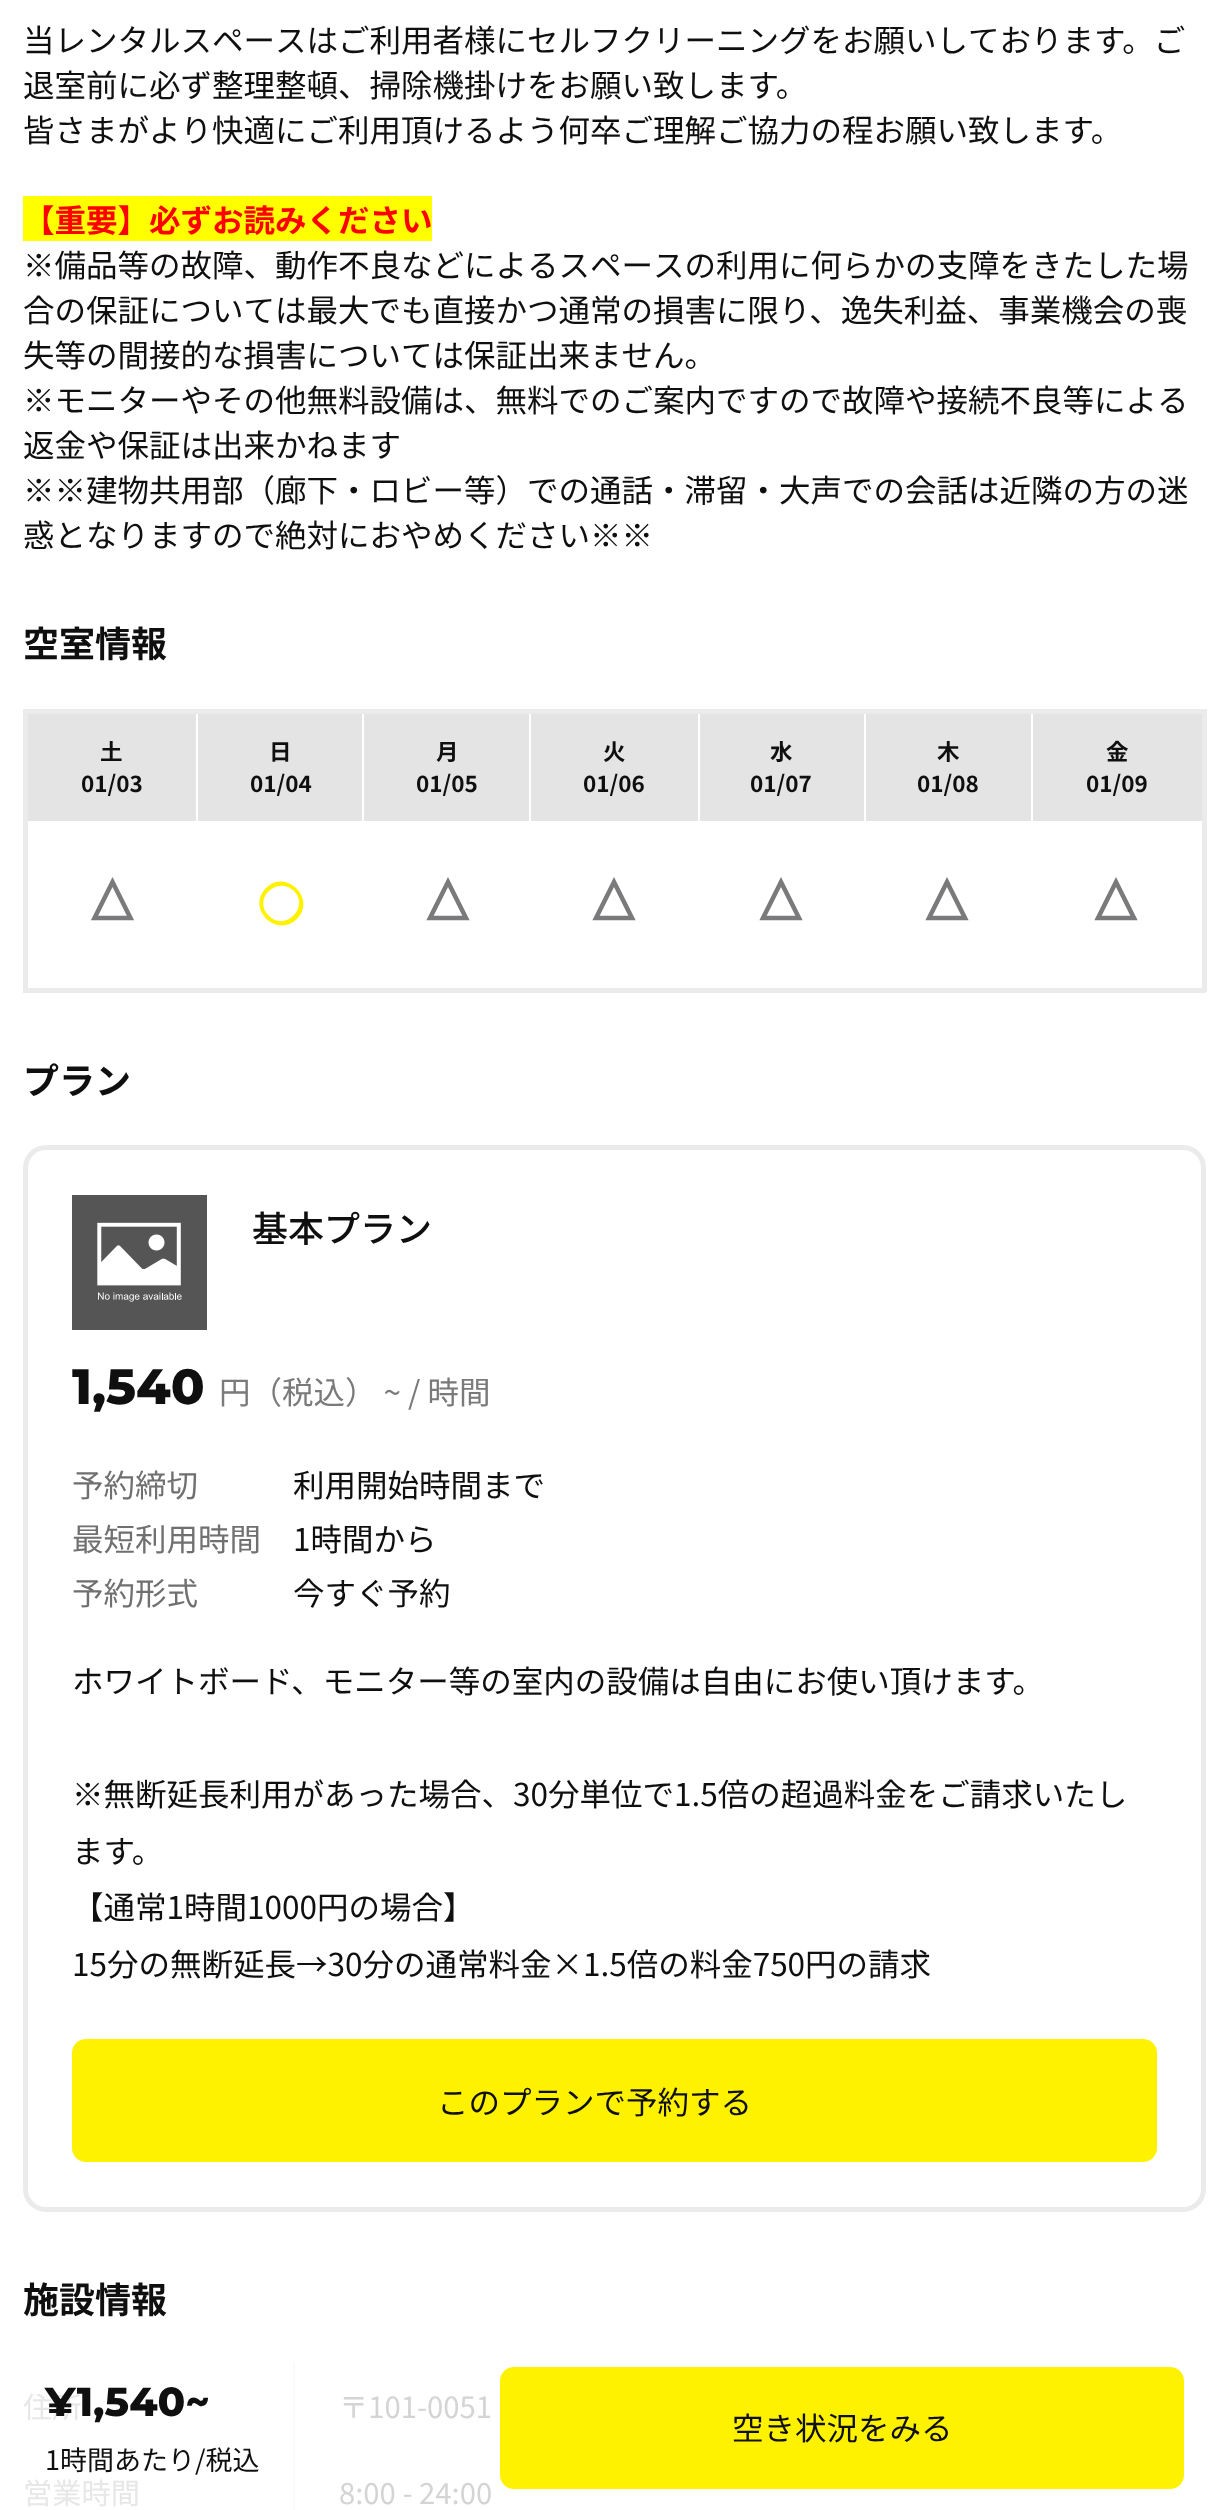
async function draw(canvas) {
  canvas.width = 1227;
  canvas.height = 2510;
  const ctx = canvas.getContext('2d');
  ctx.miterLimit = 4;
  ctx.fontKerning = 'normal';
  function label(s, x, y, font, color) {
    ctx.font = font;
    ctx.fillStyle = color;
    ctx.fillText(s, x, y);
  }
  function rect(x, y, w, h, color) {
    ctx.fillStyle = color;
    ctx.fillRect(x, y, w, h);
  }
  function roundedRect(x, y, w, h, r, color) {
    ctx.fillStyle = color;
    ctx.beginPath();
    ctx.roundRect(x, y, w, h, r);
    ctx.fill();
  }
  async function image(src, x, y, w, h) {
    const img = new Image();
    img.src = src;
    await img.decode();
    ctx.drawImage(img, x, y, w, h);
  }
  let path;

  rect(0, 0, 1227, 2510, '#fff');
  label('当レンタルスペースはご利用者様にセルフクリーニングをお願いしております。ご', 23, 52, '31.5px Noto Sans JP', '#0f0f0f');
  label('退室前に必ず整理整頓、掃除機掛けをお願い致します。', 23, 97, '31.5px Noto Sans JP', '#0f0f0f');
  label('皆さまがより快適にご利用頂けるよう何卒ご理解ご協力の程お願い致します。', 23, 142, '31.5px Noto Sans JP', '#0f0f0f');
  rect(23, 196, 409, 45, '#ff0');
  label('【重要】必ずお読みください', 23, 232, 'bold 31.5px Noto Sans JP', '#f00');
  label('※備品等の故障、動作不良などによるスペースの利用に何らかの支障をきたした場', 23, 277, '31.5px Noto Sans JP', '#0f0f0f');
  label('合の保証については最大でも直接かつ通常の損害に限り、逸失利益、事業機会の喪', 23, 322, '31.5px Noto Sans JP', '#0f0f0f');
  label('失等の間接的な損害については保証出来ません。', 23, 367, '31.5px Noto Sans JP', '#0f0f0f');
  label('※モニターやその他無料設備は、無料でのご案内ですので故障や接続不良等による', 23, 412, '31.5px Noto Sans JP', '#0f0f0f');
  label('返金や保証は出来かねます', 23, 457, '31.5px Noto Sans JP', '#0f0f0f');
  label('※※建物共用部（廊下・ロビー等）での通話・滞留・大声での会話は近隣の方の迷', 23, 502, '31.5px Noto Sans JP', '#0f0f0f');
  label('惑となりますので絶対におやめください※※', 23, 547, '31.5px Noto Sans JP', '#0f0f0f');
  label('空室情報', 23, 657, 'bold 36px Noto Sans JP', '#0f0f0f');
  rect(198, 714, 331, 107, '#e4e4e4');
  rect(362, 709, 2, 115, '#fff');
  rect(23, 709, 1183, 5, '#ebebeb');
  rect(1202, 709, 5, 283, '#ebebeb');
  rect(23, 988, 1183, 5, '#ebebeb');
  rect(23, 709, 5, 283, '#ebebeb');
  rect(28, 714, 168, 107, '#e4e4e4');
  label('土', 100, 760, 'bold 22.5px Noto Sans JP', '#0f0f0f');
  label('01/03', 81, 792, 'bold 22.5px Noto Sans JP', '#0f0f0f');
  label('日', 269, 760, 'bold 22.5px Noto Sans JP', '#0f0f0f');
  label('01/04', 250, 792, 'bold 22.5px Noto Sans JP', '#0f0f0f');
  label('月', 436, 760, 'bold 22.5px Noto Sans JP', '#0f0f0f');
  label('01/05', 416, 792, 'bold 22.5px Noto Sans JP', '#0f0f0f');
  rect(531, 714, 167, 107, '#e4e4e4');
  label('火', 603, 760, 'bold 22.5px Noto Sans JP', '#0f0f0f');
  label('01/06', 583, 792, 'bold 22.5px Noto Sans JP', '#0f0f0f');
  rect(700, 714, 164, 107, '#e4e4e4');
  label('水', 770, 760, 'bold 22.5px Noto Sans JP', '#0f0f0f');
  label('01/07', 750, 792, 'bold 22.5px Noto Sans JP', '#0f0f0f');
  rect(866, 714, 165, 107, '#e4e4e4');
  label('木', 937, 760, 'bold 22.5px Noto Sans JP', '#0f0f0f');
  label('01/08', 917, 792, 'bold 22.5px Noto Sans JP', '#0f0f0f');
  rect(1033, 714, 169, 107, '#e4e4e4');
  label('金', 1106, 760, 'bold 22.5px Noto Sans JP', '#0f0f0f');
  label('01/09', 1086, 792, 'bold 22.5px Noto Sans JP', '#0f0f0f');
  path = new Path2D('M112.5 882L130.5 918H94.5Z');
  ctx.strokeStyle = '#7a7a7c';
  ctx.lineWidth = 4.5;
  ctx.stroke(path);
  ctx.fillStyle = '#fff200';
  path = new Path2D('M266 888C286 868 317 899 297 919C276 939 246 908 266 888ZM269 916C285 932 310 907 294 891C277 875 252 899 269 916Z');
  ctx.fill(path);
  path = new Path2D('M448 882L466 918H430Z');
  ctx.stroke(path);
  path = new Path2D('M614 882L632 918H596Z');
  ctx.stroke(path);
  path = new Path2D('M781 882L799 918H763Z');
  ctx.stroke(path);
  path = new Path2D('M947 882L965 918H929Z');
  ctx.stroke(path);
  path = new Path2D('M1116 882L1134 918H1098Z');
  ctx.stroke(path);
  label('プラン', 23, 1094, 'bold 36px Noto Sans JP', '#0f0f0f');
  ctx.beginPath();
  ctx.roundRect(25.5, 1147.5, 1178, 1062, 20.5);
  ctx.strokeStyle = '#ebebeb';
  ctx.lineWidth = 5;
  ctx.stroke();
  await image('assets/img1.png', 72, 1195, 135, 135);
  label('基本プラン', 252, 1242, '500 36px Noto Sans JP', '#0f0f0f');
  label('1,540', 72, 1404, '800 49.5px Montserrat', '#0f0f0f');
  label('円（税込） ~ / 時間', 219, 1404, '31.5px Noto Sans JP', '#7a7a7c');
  label('予約締切', 72, 1497, '31.5px Noto Sans JP', '#707070');
  label('利用開始時間まで', 293, 1497, '31.5px Noto Sans JP', '#0f0f0f');
  label('最短利用時間', 72, 1551, '31.5px Noto Sans JP', '#707070');
  label('1時間から', 293, 1551, '31.5px Noto Sans JP', '#0f0f0f');
  label('予約形式', 72, 1605, '31.5px Noto Sans JP', '#707070');
  label('今すぐ予約', 293, 1605, '31.5px Noto Sans JP', '#0f0f0f');
  label('ホワイトボード、モニター等の室内の設備は自由にお使い頂けます。', 72, 1693, '31.5px Noto Sans JP', '#0f0f0f');
  label('※無断延長利用があった場合、30分単位で1.5倍の超過料金をご請求いたし', 72, 1806, '31.5px Noto Sans JP', '#0f0f0f');
  label('ます。', 72, 1863, '31.5px Noto Sans JP', '#0f0f0f');
  label('【通常1時間1000円の場合】', 72, 1919, '31.5px Noto Sans JP', '#0f0f0f');
  label('15分の無断延長→30分の通常料金×1.5倍の料金750円の請求', 72, 1976, '31.5px Noto Sans JP', '#0f0f0f');
  roundedRect(72, 2039, 1085, 123, 14, '#fff200');
  label('このプランで予約する', 437, 2114, '31.5px Noto Sans JP', '#0f0f0f');
  label('施設情報', 23, 2313, 'bold 36px Noto Sans JP', '#0f0f0f');
  label('住所', 23, 2418, '29.25px Noto Sans JP', '#e7e7e7');
  label('〒101-0051', 339, 2418, '29.25px Noto Sans JP', '#d4d4d4');
  rect(293, 2363, 2, 147, '#fbfbfb');
  label('営業時間', 23, 2504, '29.25px Noto Sans JP', '#e7e7e7');
  label('8:00 - 24:00', 339, 2504, '29.25px Noto Sans JP', '#d4d4d4');
  label('¥1,540~', 45, 2416, '800 40.5px Montserrat', '#0f0f0f');
  label('1時間あたり/税込', 45, 2470, '27px Noto Sans JP', '#0f0f0f');
  roundedRect(500, 2367, 684, 122, 14, '#fff200');
  label('空き状況をみる', 732, 2440, '31.5px Noto Sans JP', '#0f0f0f');
}

draw(document.querySelector('canvas'));
